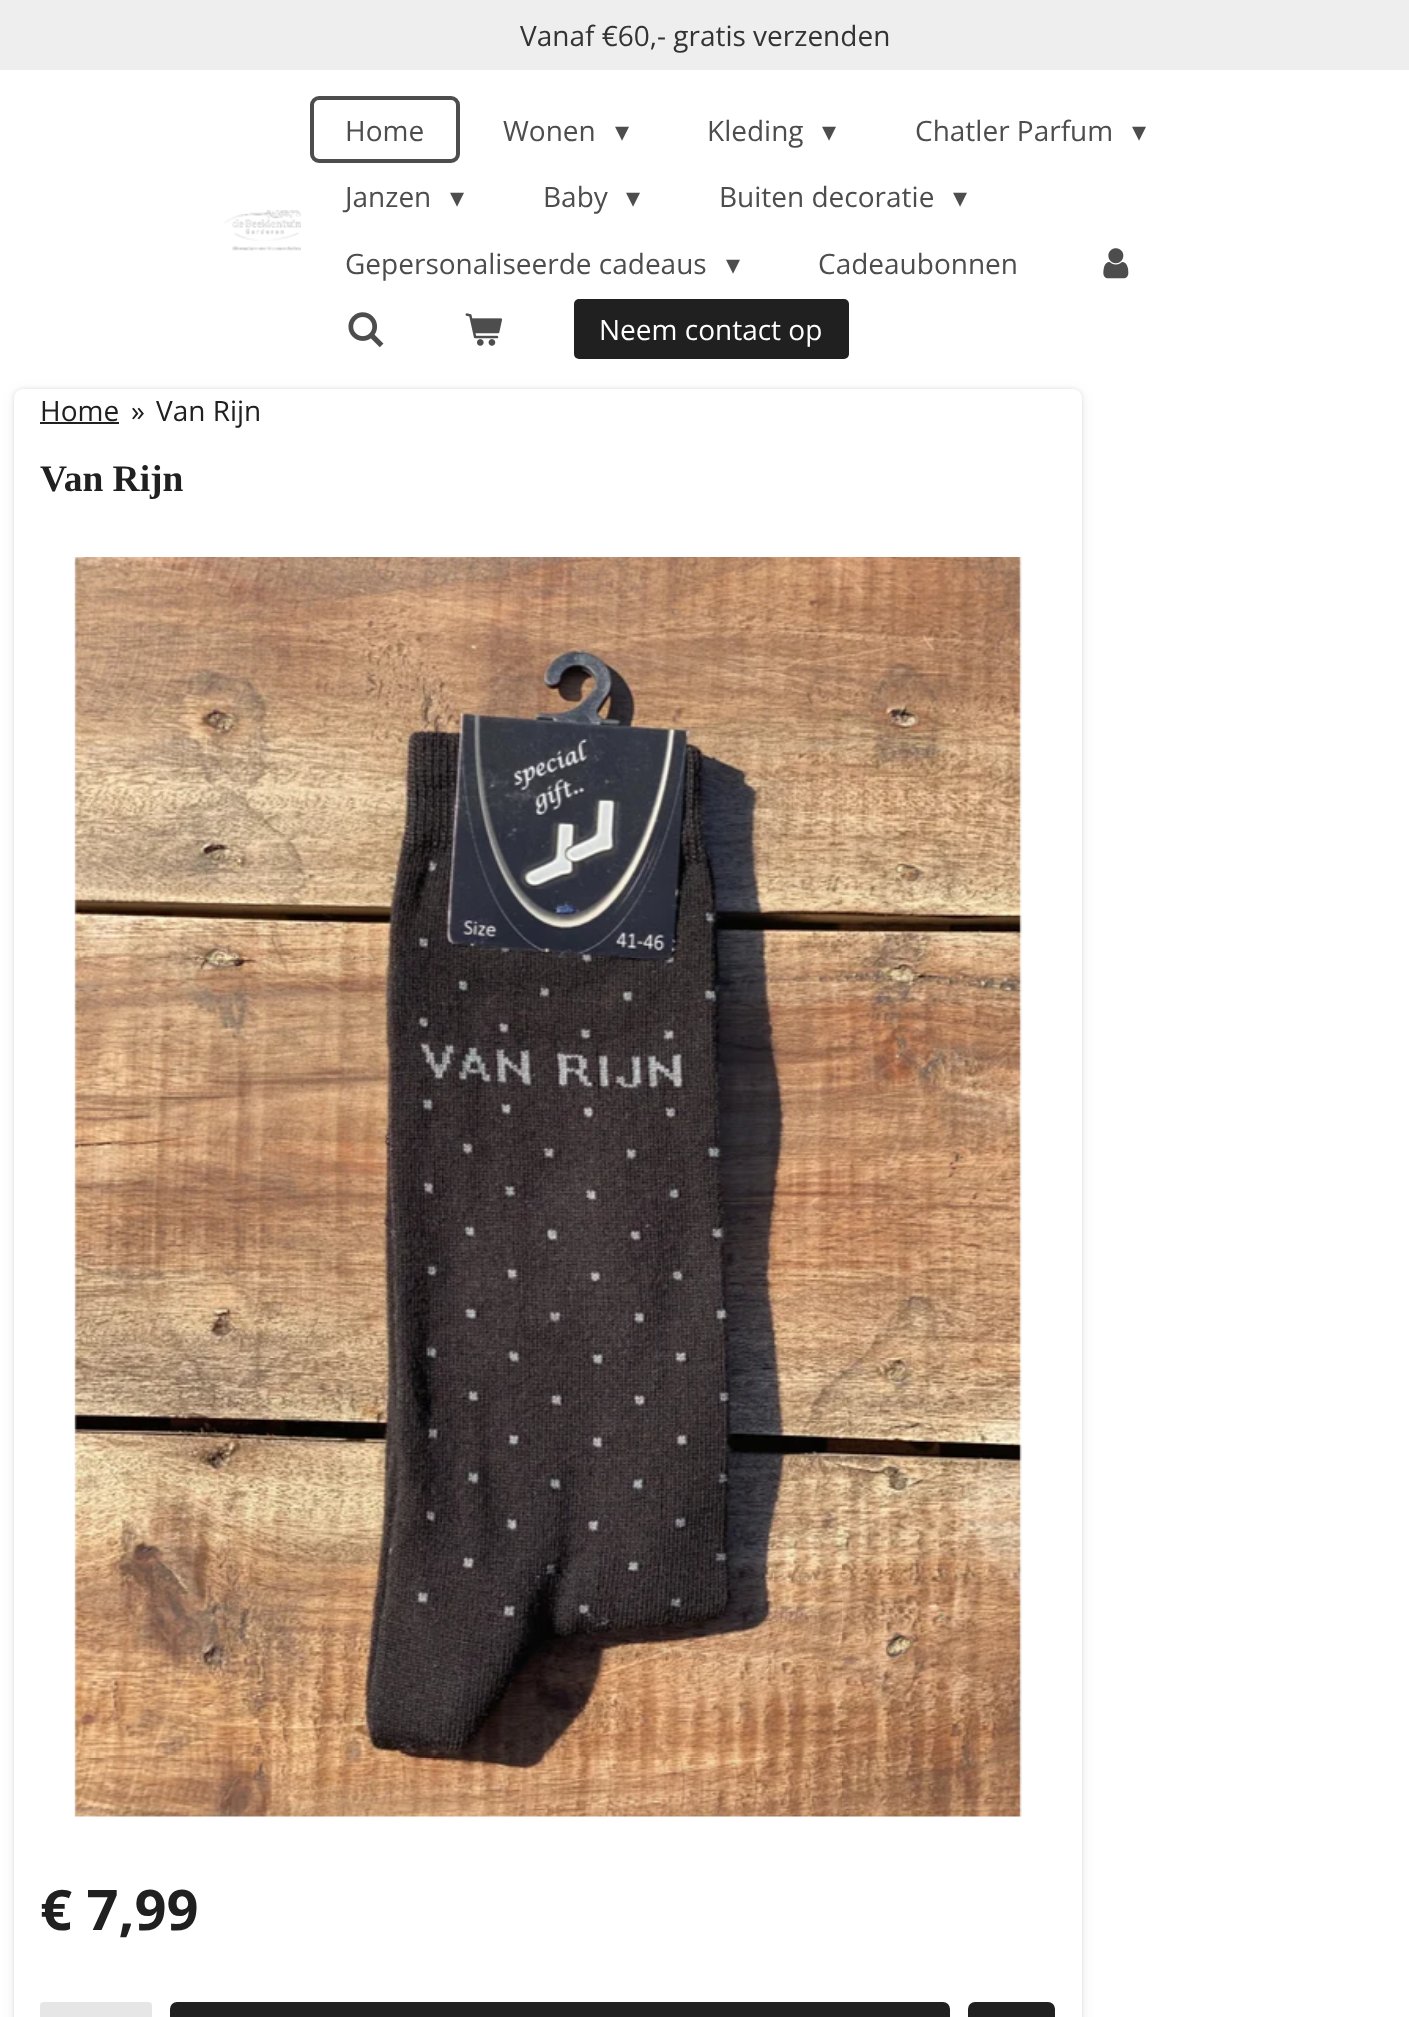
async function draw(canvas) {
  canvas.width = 1409;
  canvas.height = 2017;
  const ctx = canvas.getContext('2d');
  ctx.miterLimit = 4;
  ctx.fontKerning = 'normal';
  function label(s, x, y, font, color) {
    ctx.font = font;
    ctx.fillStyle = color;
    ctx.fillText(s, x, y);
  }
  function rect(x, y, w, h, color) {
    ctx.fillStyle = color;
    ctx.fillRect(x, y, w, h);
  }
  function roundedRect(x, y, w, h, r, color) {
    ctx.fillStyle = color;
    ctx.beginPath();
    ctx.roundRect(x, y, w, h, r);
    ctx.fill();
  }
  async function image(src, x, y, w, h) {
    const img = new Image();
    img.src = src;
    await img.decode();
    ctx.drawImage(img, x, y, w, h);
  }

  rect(0, 0, 1409, 2017, '#fff');
  rect(0, 0, 1409, 70, '#eee');
  label('Vanaf €60,- gratis verzenden', 520, 46, '28px Open Sans', '#333');
  await image('assets/img1.png', 224, 210, 77, 41);
  ctx.beginPath();
  ctx.roundRect(312, 98, 146, 63, 7);
  ctx.strokeStyle = '#4d4d4d';
  ctx.lineWidth = 4;
  ctx.stroke();
  label('Home', 345, 141, '28px Open Sans', '#4d4d4d');
  label('Wonen', 503, 141, '28px Open Sans', '#4d4d4d');
  label('▾', 615, 141, '28px DejaVu Sans', '#4d4d4d');
  label('Kleding', 707, 141, '28px Open Sans', '#4d4d4d');
  label('▾', 822, 141, '28px DejaVu Sans', '#4d4d4d');
  label('Chatler Parfum', 915, 141, '28px Open Sans', '#4d4d4d');
  label('▾', 1132, 141, '28px DejaVu Sans', '#4d4d4d');
  label('Janzen', 345, 207, '28px Open Sans', '#4d4d4d');
  label('▾', 450, 207, '28px DejaVu Sans', '#4d4d4d');
  label('Baby', 543, 207, '28px Open Sans', '#4d4d4d');
  label('▾', 626, 207, '28px DejaVu Sans', '#4d4d4d');
  label('Buiten decoratie', 719, 207, '28px Open Sans', '#4d4d4d');
  label('▾', 953, 207, '28px DejaVu Sans', '#4d4d4d');
  label('Gepersonaliseerde cadeaus', 345, 274, '28px Open Sans', '#4d4d4d');
  label('▾', 726, 274, '28px DejaVu Sans', '#4d4d4d');
  label('Cadeaubonnen', 818, 274, '28px Open Sans', '#4d4d4d');
  await image('assets/img2.png', 1103, 248, 26, 31);
  await image('assets/img3.png', 348, 312, 36, 36);
  await image('assets/img4.png', 465, 313, 38, 33);
  roundedRect(574, 299, 275, 60, 5, '#202020');
  label('Neem contact op', 599, 340, '28px Open Sans', '#fff');
  ctx.fillStyle = '#0000001a';
  ctx.filter = 'blur(2px)';
  ctx.beginPath();
  ctx.roundRect(14, 389, 1068, 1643, 9);
  ctx.fill();
  ctx.filter = 'none';
  ctx.fillStyle = '#00000012';
  ctx.filter = 'blur(7px)';
  ctx.beginPath();
  ctx.roundRect(14, 392, 1068, 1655, 9);
  ctx.fill();
  ctx.filter = 'none';
  roundedRect(14, 389, 1068, 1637, 9, '#fff');
  label('Home', 40, 421, '28px Open Sans', '#202020');
  rect(40, 422, 79, 2, '#202020');
  label('»', 131, 421, '28px Open Sans', '#202020');
  label('Van Rijn', 156, 421, '28px Open Sans', '#202020');
  label('Van Rijn', 40, 491, 'bold 37.5px Liberation Serif', '#202020');
  await image('assets/img5.png', 74, 557, 948, 1260);
  label('€ 7,99', 40, 1930, 'bold 56px Open Sans', '#202020');
  roundedRect(40, 2002, 112, 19, 4, '#e6e6e6');
  roundedRect(170, 2002, 780, 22, 7, '#202020');
  roundedRect(968, 2002, 87, 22, 7, '#202020');
}

draw(document.querySelector('canvas'));
